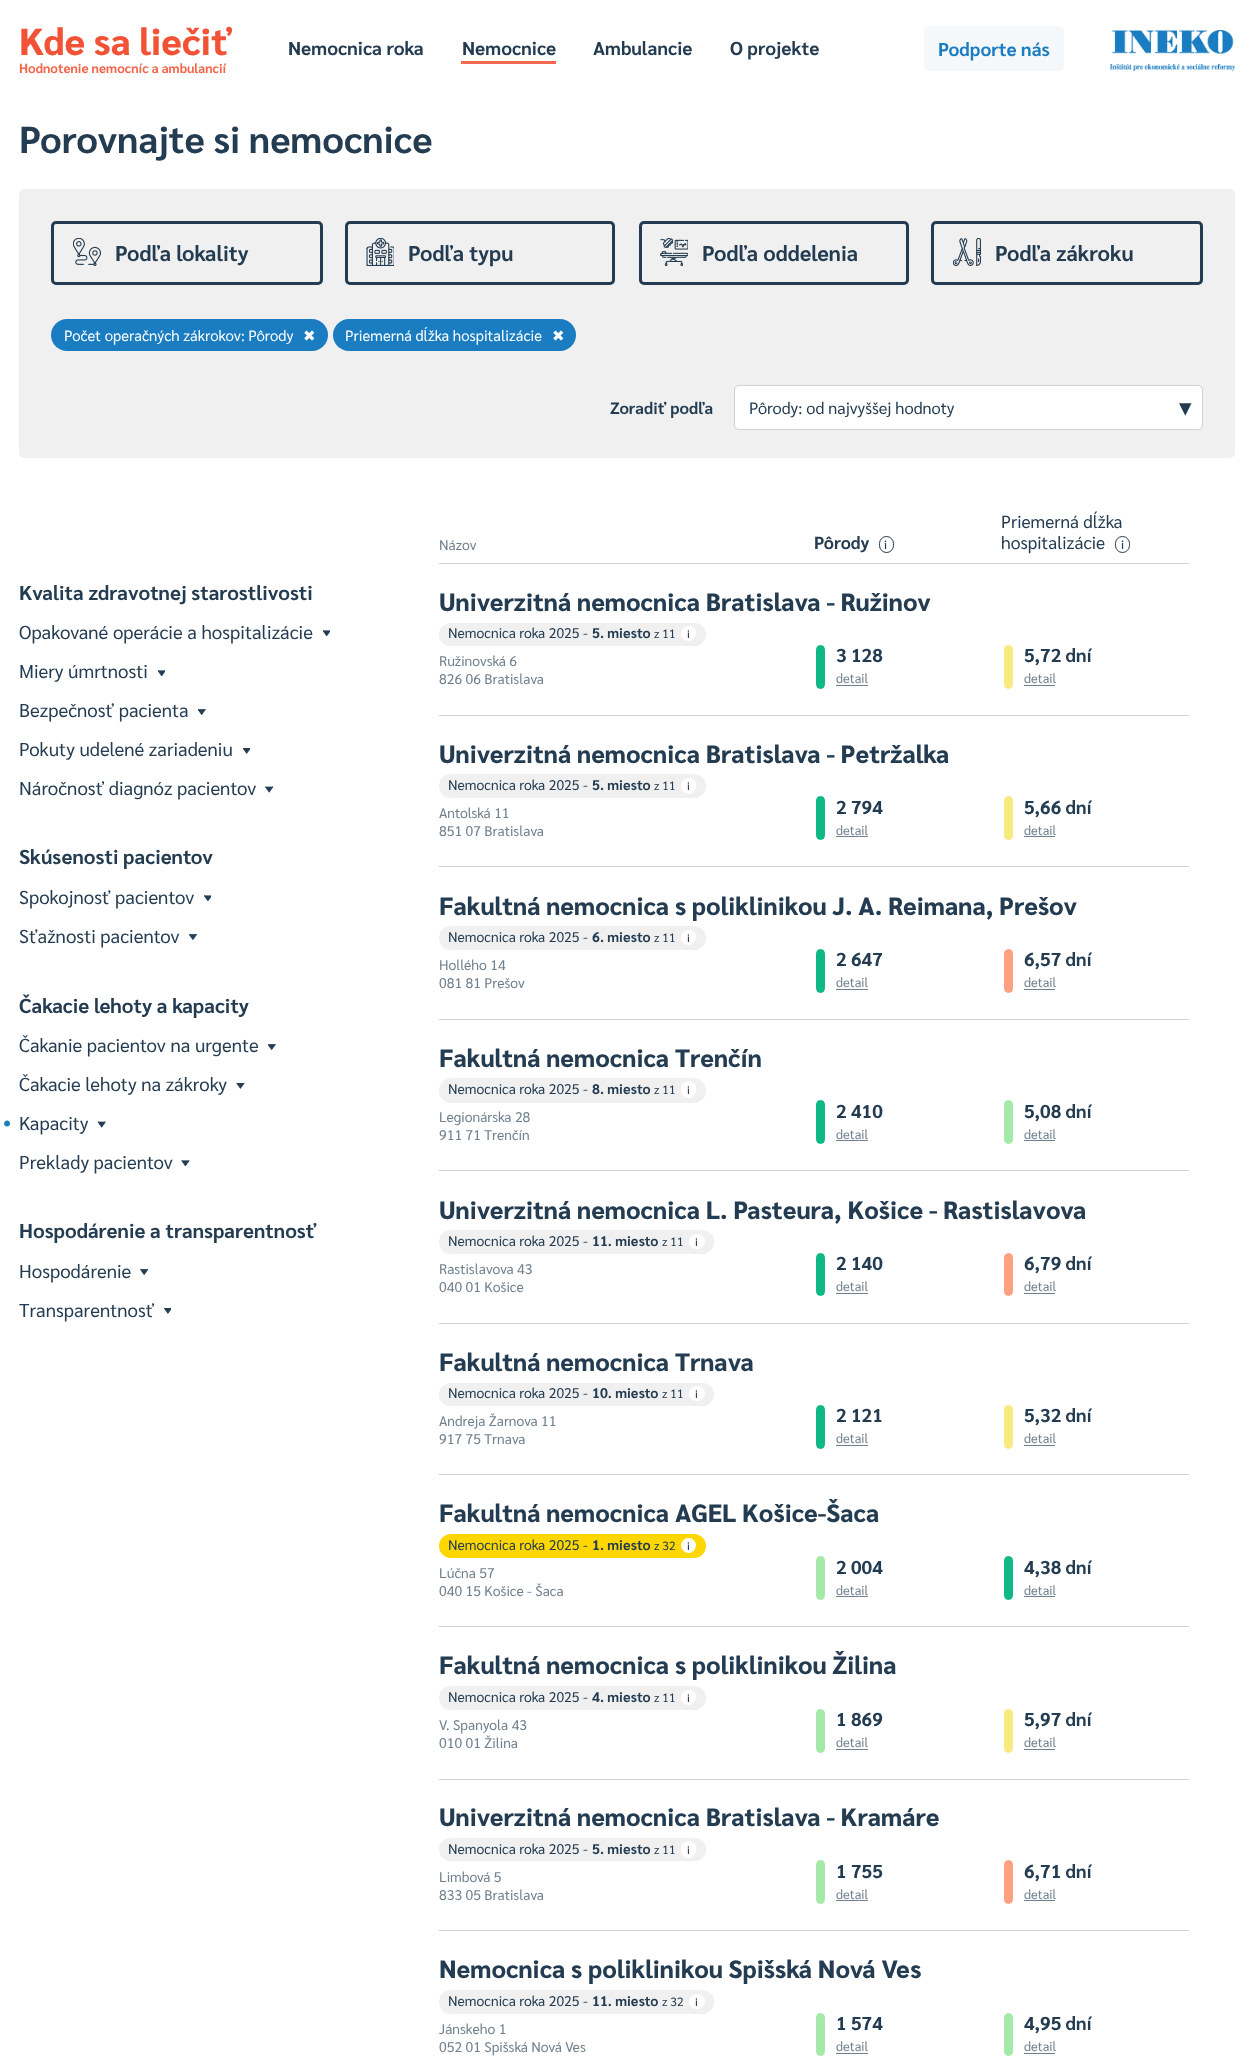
async function draw(canvas) {
  canvas.width = 1253;
  canvas.height = 2059;
  const ctx = canvas.getContext('2d');
  ctx.miterLimit = 4;
  ctx.fontKerning = 'normal';
  function label(s, x, y, font, color) {
    ctx.font = font;
    ctx.fillStyle = color;
    ctx.fillText(s, x, y);
  }
  function rect(x, y, w, h, color) {
    ctx.fillStyle = color;
    ctx.fillRect(x, y, w, h);
  }
  function roundedRect(x, y, w, h, r, color) {
    ctx.fillStyle = color;
    ctx.beginPath();
    ctx.roundRect(x, y, w, h, r);
    ctx.fill();
  }
  async function image(src, x, y, w, h) {
    const img = new Image();
    img.src = src;
    await img.decode();
    ctx.drawImage(img, x, y, w, h);
  }

  rect(0, 0, 1253, 2059, '#fff');
  label('Kde sa liečiť', 19, 55, '800 37.5px Sarabun', '#f25336');
  label('Hodnotenie nemocníc a ambulancií', 19, 73, 'bold 13.1px Sarabun', '#f3644a');
  label('Nemocnica roka', 288, 55, 'bold 18.75px Sarabun', '#243c51');
  rect(461, 61, 95, 3, '#f36950');
  label('Nemocnice', 462, 55, 'bold 18.75px Sarabun', '#243c51');
  label('Ambulancie', 593, 55, 'bold 18.75px Sarabun', '#243c51');
  label('O projekte', 730, 55, 'bold 18.75px Sarabun', '#243c51');
  roundedRect(924, 26, 140, 45, 5, '#f4f8fb');
  label('Podporte nás', 938, 56, 'bold 18.75px Sarabun', '#1b7dc1');
  await image('assets/img1.png', 1110, 30, 125, 42);
  label('Porovnajte si nemocnice', 19, 153, 'bold 37.5px Sarabun', '#243c51');
  roundedRect(19, 189, 1216, 269, 5, '#f0f0f0');
  ctx.beginPath();
  ctx.roundRect(52.5, 222.5, 269, 61, 3.5);
  ctx.strokeStyle = '#243c51';
  ctx.lineWidth = 3;
  ctx.stroke();
  await image('assets/img2.png', 73, 238, 28, 28);
  label('Podľa lokality', 115, 261, 'bold 21.5px Sarabun', '#243c51');
  ctx.beginPath();
  ctx.roundRect(346.5, 222.5, 267, 61, 3.5);
  ctx.stroke();
  await image('assets/img3.png', 366, 238, 28, 28);
  label('Podľa typu', 408, 261, 'bold 21.5px Sarabun', '#243c51');
  ctx.beginPath();
  ctx.roundRect(640.5, 222.5, 267, 61, 3.5);
  ctx.stroke();
  await image('assets/img4.png', 660, 238, 28, 28);
  label('Podľa oddelenia', 702, 261, 'bold 21.5px Sarabun', '#243c51');
  ctx.beginPath();
  ctx.roundRect(932.5, 222.5, 269, 61, 3.5);
  ctx.stroke();
  await image('assets/img5.png', 953, 238, 28, 28);
  label('Podľa zákroku', 995, 261, 'bold 21.5px Sarabun', '#243c51');
  roundedRect(51, 319, 277, 32, 16, '#1b7dc1');
  label('Počet operačných zákrokov: Pôrody', 64, 341, '15px Sarabun', '#fff');
  label('✖', 303, 341, '15px DejaVu Sans', '#fff');
  roundedRect(333, 319, 243, 32, 16, '#1b7dc1');
  label('Priemerná dĺžka hospitalizácie', 345, 341, '15px Sarabun', '#fff');
  label('✖', 552, 341, '15px DejaVu Sans', '#fff');
  label('Zoradiť podľa', 610, 414, 'bold 16.4px Sarabun', '#243c51');
  ctx.fillStyle = '#fff';
  ctx.beginPath();
  ctx.roundRect(734.5, 385.5, 468, 44, 4.5);
  ctx.fill();
  ctx.strokeStyle = '#d1d1d1';
  ctx.lineWidth = 1;
  ctx.stroke();
  label('Pôrody: od najvyššej hodnoty', 749, 414, '16.4px Sarabun', '#243c51');
  label('▾', 1179, 416, '25px DejaVu Sans', '#243c51');
  label('Kvalita zdravotnej starostlivosti', 19, 600, 'bold 20.2px Sarabun', '#243c51');
  label('Opakované operácie a hospitalizácie', 19, 639, '18.75px Sarabun', '#243c51');
  await image('assets/img6.png', 323, 630, 7, 6);
  label('Miery úmrtnosti', 19, 678, '18.75px Sarabun', '#243c51');
  await image('assets/img6.png', 158, 670, 7, 6);
  label('Bezpečnosť pacienta', 19, 717, '18.75px Sarabun', '#243c51');
  await image('assets/img7.png', 198, 709, 8, 6);
  label('Pokuty udelené zariadeniu', 19, 756, '18.75px Sarabun', '#243c51');
  await image('assets/img8.png', 243, 748, 7, 6);
  label('Náročnosť diagnóz pacientov', 19, 795, '18.75px Sarabun', '#243c51');
  await image('assets/img9.png', 265, 786, 9, 7);
  label('Skúsenosti pacientov', 19, 864, 'bold 20.2px Sarabun', '#243c51');
  label('Spokojnosť pacientov', 19, 904, '18.75px Sarabun', '#243c51');
  await image('assets/img10.png', 204, 895, 7, 6);
  label('Sťažnosti pacientov', 19, 943, '18.75px Sarabun', '#243c51');
  await image('assets/img11.png', 189, 934, 8, 6);
  label('Čakacie lehoty a kapacity', 19, 1013, 'bold 20.2px Sarabun', '#243c51');
  label('Čakanie pacientov na urgente', 19, 1052, '18.75px Sarabun', '#243c51');
  await image('assets/img7.png', 268, 1044, 8, 6);
  label('Čakacie lehoty na zákroky', 19, 1091, '18.75px Sarabun', '#243c51');
  await image('assets/img12.png', 236, 1083, 9, 6);
  label('•', 3, 1130, '22px Sarabun', '#1b7dc1');
  label('Kapacity', 19, 1130, '18.75px Sarabun', '#243c51');
  await image('assets/img13.png', 98, 1121, 8, 7);
  label('Preklady pacientov', 19, 1169, '18.75px Sarabun', '#243c51');
  await image('assets/img14.png', 181, 1160, 9, 6);
  label('Hospodárenie a transparentnosť', 19, 1238, 'bold 20.2px Sarabun', '#243c51');
  label('Hospodárenie', 19, 1278, '18.75px Sarabun', '#243c51');
  await image('assets/img15.png', 140, 1269, 9, 6);
  label('Transparentnosť', 19, 1317, '18.75px Sarabun', '#243c51');
  await image('assets/img16.png', 164, 1308, 7, 6);
  rect(439, 563, 750, 1, '#d1d1d1');
  label('Názov', 439, 550, '14px Sarabun', '#71808e');
  label('Pôrody', 814, 549, 'bold 17.5px Sarabun', '#243c51');
  ctx.beginPath();
  ctx.roundRect(879.5, 536.5, 14, 16, 7);
  ctx.strokeStyle = '#243c51';
  ctx.stroke();
  label('i', 884, 549, '500 12px Sarabun', '#243c51');
  label('Priemerná dĺžka', 1001, 528, '17.5px Sarabun', '#243c51');
  label('hospitalizácie', 1001, 549, '17.5px Sarabun', '#243c51');
  ctx.beginPath();
  ctx.roundRect(1115.5, 536.5, 14, 16, 7);
  ctx.stroke();
  label('i', 1121, 549, '500 12px Sarabun', '#243c51');
  rect(439, 715, 750, 1, '#d1d1d1');
  label('Univerzitná nemocnica Bratislava - Ružinov', 439, 611, '800 24.95px Sarabun', '#243c51');
  roundedRect(439, 623, 267, 23, 11.5, '#f0f0f0');
  label('Nemocnica roka 2025 -', 448, 638, '14px Sarabun', '#243c51');
  label('5. miesto', 592, 638, 'bold 14px Sarabun', '#243c51');
  label('z 11', 654, 638, '12px Sarabun', '#243c51');
  ctx.fillStyle = '#fff';
  ctx.beginPath();
  ctx.arc(688.5, 633.5, 7.5, 0, 2 * Math.PI);
  ctx.fill();
  label('i', 687, 638, '500 11px Sarabun', '#243c51');
  label('Ružinovská 6', 439, 666, '14px Sarabun', '#71808e');
  label('826 06 Bratislava', 439, 684, '14px Sarabun', '#71808e');
  ctx.fillStyle = '#0fb885';
  ctx.beginPath();
  ctx.roundRect(816.5, 645.5, 8, 43, 4);
  ctx.fill();
  ctx.strokeStyle = '#0fb885';
  ctx.stroke();
  label('3 128', 836, 662, 'bold 18.75px Sarabun', '#243c51');
  label('detail', 836, 683, '13px Sarabun', '#71808e');
  rect(836, 685, 32, 1, '#71808e');
  ctx.fillStyle = '#f9ea80';
  ctx.beginPath();
  ctx.roundRect(1004.5, 645.5, 8, 43, 4);
  ctx.fill();
  ctx.strokeStyle = '#f9ea80';
  ctx.stroke();
  label('5,72 dní', 1024, 662, 'bold 18.75px Sarabun', '#243c51');
  label('detail', 1024, 683, '13px Sarabun', '#71808e');
  rect(1024, 685, 31, 1, '#71808e');
  rect(439, 866, 750, 1, '#d1d1d1');
  label('Univerzitná nemocnica Bratislava - Petržalka', 439, 763, '800 24.95px Sarabun', '#243c51');
  roundedRect(439, 774, 267, 24, 12, '#f0f0f0');
  label('Nemocnica roka 2025 -', 448, 790, '14px Sarabun', '#243c51');
  label('5. miesto', 592, 790, 'bold 14px Sarabun', '#243c51');
  label('z 11', 654, 790, '12px Sarabun', '#243c51');
  roundedRect(681, 778, 15, 16, 7.5, '#fff');
  label('i', 687, 790, '500 11px Sarabun', '#243c51');
  label('Antolská 11', 439, 818, '14px Sarabun', '#71808e');
  label('851 07 Bratislava', 439, 836, '14px Sarabun', '#71808e');
  ctx.fillStyle = '#0fb885';
  ctx.beginPath();
  ctx.roundRect(816.5, 796.5, 8, 43, 4);
  ctx.fill();
  ctx.strokeStyle = '#0fb885';
  ctx.stroke();
  label('2 794', 836, 814, 'bold 18.75px Sarabun', '#243c51');
  label('detail', 836, 835, '13px Sarabun', '#71808e');
  rect(836, 836, 32, 1, '#71808e');
  ctx.fillStyle = '#f9ea80';
  ctx.beginPath();
  ctx.roundRect(1004.5, 796.5, 8, 43, 4);
  ctx.fill();
  ctx.strokeStyle = '#f9ea80';
  ctx.stroke();
  label('5,66 dní', 1024, 814, 'bold 18.75px Sarabun', '#243c51');
  label('detail', 1024, 835, '13px Sarabun', '#71808e');
  rect(1024, 836, 31, 1, '#71808e');
  rect(439, 1019, 750, 1, '#d1d1d1');
  label('Fakultná nemocnica s poliklinikou J. A. Reimana, Prešov', 439, 915, '800 24.95px Sarabun', '#243c51');
  roundedRect(439, 926, 267, 24, 12, '#f0f0f0');
  label('Nemocnica roka 2025 -', 448, 942, '14px Sarabun', '#243c51');
  label('6. miesto', 592, 942, 'bold 14px Sarabun', '#243c51');
  label('z 11', 654, 942, '12px Sarabun', '#243c51');
  ctx.fillStyle = '#fff';
  ctx.beginPath();
  ctx.arc(688.5, 937.5, 7.5, 0, 2 * Math.PI);
  ctx.fill();
  label('i', 687, 942, '500 11px Sarabun', '#243c51');
  label('Hollého 14', 439, 970, '14px Sarabun', '#71808e');
  label('081 81 Prešov', 439, 988, '14px Sarabun', '#71808e');
  ctx.fillStyle = '#0fb885';
  ctx.beginPath();
  ctx.roundRect(816.5, 949.5, 8, 43, 4);
  ctx.fill();
  ctx.strokeStyle = '#0fb885';
  ctx.stroke();
  label('2 647', 836, 966, 'bold 18.75px Sarabun', '#243c51');
  label('detail', 836, 987, '13px Sarabun', '#71808e');
  rect(836, 989, 32, 1, '#71808e');
  ctx.fillStyle = '#ffa082';
  ctx.beginPath();
  ctx.roundRect(1004.5, 949.5, 8, 43, 4);
  ctx.fill();
  ctx.strokeStyle = '#ffa082';
  ctx.stroke();
  label('6,57 dní', 1024, 966, 'bold 18.75px Sarabun', '#243c51');
  label('detail', 1024, 987, '13px Sarabun', '#71808e');
  rect(1024, 989, 31, 1, '#71808e');
  rect(439, 1170, 750, 1, '#d1d1d1');
  label('Fakultná nemocnica Trenčín', 439, 1067, '800 24.95px Sarabun', '#243c51');
  roundedRect(439, 1078, 267, 25, 12.5, '#f0f0f0');
  label('Nemocnica roka 2025 -', 448, 1094, '14px Sarabun', '#243c51');
  label('8. miesto', 592, 1094, 'bold 14px Sarabun', '#243c51');
  label('z 11', 654, 1094, '12px Sarabun', '#243c51');
  roundedRect(681, 1081, 15, 17, 7.5, '#fff');
  label('i', 687, 1094, '500 11px Sarabun', '#243c51');
  label('Legionárska 28', 439, 1122, '14px Sarabun', '#71808e');
  label('911 71 Trenčín', 439, 1140, '14px Sarabun', '#71808e');
  ctx.fillStyle = '#0fb885';
  ctx.beginPath();
  ctx.roundRect(816.5, 1100.5, 8, 43, 4);
  ctx.fill();
  ctx.strokeStyle = '#0fb885';
  ctx.stroke();
  label('2 410', 836, 1118, 'bold 18.75px Sarabun', '#243c51');
  label('detail', 836, 1139, '13px Sarabun', '#71808e');
  rect(836, 1140, 32, 1, '#71808e');
  ctx.fillStyle = '#a4e9a7';
  ctx.beginPath();
  ctx.roundRect(1004.5, 1100.5, 8, 43, 4);
  ctx.fill();
  ctx.strokeStyle = '#a4e9a7';
  ctx.stroke();
  label('5,08 dní', 1024, 1118, 'bold 18.75px Sarabun', '#243c51');
  label('detail', 1024, 1139, '13px Sarabun', '#71808e');
  rect(1024, 1140, 31, 1, '#71808e');
  rect(439, 1323, 750, 1, '#d1d1d1');
  label('Univerzitná nemocnica L. Pasteura, Košice - Rastislavova', 439, 1219, '800 24.95px Sarabun', '#243c51');
  roundedRect(439, 1230, 275, 24, 12, '#f0f0f0');
  label('Nemocnica roka 2025 -', 448, 1246, '14px Sarabun', '#243c51');
  label('11. miesto', 592, 1246, 'bold 14px Sarabun', '#243c51');
  label('z 11', 662, 1246, '12px Sarabun', '#243c51');
  roundedRect(689, 1234, 16, 15, 7.5, '#fff');
  label('i', 695, 1246, '500 11px Sarabun', '#243c51');
  label('Rastislavova 43', 439, 1274, '14px Sarabun', '#71808e');
  label('040 01 Košice', 439, 1292, '14px Sarabun', '#71808e');
  ctx.fillStyle = '#0fb885';
  ctx.beginPath();
  ctx.roundRect(816.5, 1253.5, 8, 42, 4);
  ctx.fill();
  ctx.strokeStyle = '#0fb885';
  ctx.stroke();
  label('2 140', 836, 1270, 'bold 18.75px Sarabun', '#243c51');
  label('detail', 836, 1291, '13px Sarabun', '#71808e');
  rect(836, 1293, 32, 1, '#71808e');
  ctx.fillStyle = '#ffa082';
  ctx.beginPath();
  ctx.roundRect(1004.5, 1253.5, 8, 42, 4);
  ctx.fill();
  ctx.strokeStyle = '#ffa082';
  ctx.stroke();
  label('6,79 dní', 1024, 1270, 'bold 18.75px Sarabun', '#243c51');
  label('detail', 1024, 1291, '13px Sarabun', '#71808e');
  rect(1024, 1293, 31, 1, '#71808e');
  rect(439, 1474, 750, 1, '#d1d1d1');
  label('Fakultná nemocnica Trnava', 439, 1371, '800 24.95px Sarabun', '#243c51');
  roundedRect(439, 1383, 275, 23, 11.5, '#f0f0f0');
  label('Nemocnica roka 2025 -', 448, 1398, '14px Sarabun', '#243c51');
  label('10. miesto', 592, 1398, 'bold 14px Sarabun', '#243c51');
  label('z 11', 662, 1398, '12px Sarabun', '#243c51');
  roundedRect(689, 1386, 16, 15, 7.5, '#fff');
  label('i', 695, 1398, '500 11px Sarabun', '#243c51');
  label('Andreja Žarnova 11', 439, 1426, '14px Sarabun', '#71808e');
  label('917 75 Trnava', 439, 1444, '14px Sarabun', '#71808e');
  ctx.fillStyle = '#0fb885';
  ctx.beginPath();
  ctx.roundRect(816.5, 1405.5, 8, 43, 4);
  ctx.fill();
  ctx.strokeStyle = '#0fb885';
  ctx.stroke();
  label('2 121', 836, 1422, 'bold 18.75px Sarabun', '#243c51');
  label('detail', 836, 1443, '13px Sarabun', '#71808e');
  rect(836, 1445, 32, 1, '#71808e');
  ctx.fillStyle = '#f9ea80';
  ctx.beginPath();
  ctx.roundRect(1004.5, 1405.5, 8, 43, 4);
  ctx.fill();
  ctx.strokeStyle = '#f9ea80';
  ctx.stroke();
  label('5,32 dní', 1024, 1422, 'bold 18.75px Sarabun', '#243c51');
  label('detail', 1024, 1443, '13px Sarabun', '#71808e');
  rect(1024, 1445, 31, 1, '#71808e');
  rect(439, 1626, 750, 1, '#d1d1d1');
  label('Fakultná nemocnica AGEL Košice-Šaca', 439, 1522, '800 24.95px Sarabun', '#243c51');
  roundedRect(439, 1534, 267, 24, 12, '#ffd700');
  label('Nemocnica roka 2025 -', 448, 1550, '14px Sarabun', '#243c51');
  label('1. miesto', 592, 1550, 'bold 14px Sarabun', '#243c51');
  label('z 32', 654, 1550, '12px Sarabun', '#243c51');
  ctx.fillStyle = '#fff';
  ctx.beginPath();
  ctx.arc(688.5, 1545.5, 7.5, 0, 2 * Math.PI);
  ctx.fill();
  label('i', 687, 1550, '500 11px Sarabun', '#243c51');
  label('Lúčna 57', 439, 1578, '14px Sarabun', '#71808e');
  label('040 15 Košice - Šaca', 439, 1596, '14px Sarabun', '#71808e');
  ctx.fillStyle = '#a4e9a7';
  ctx.beginPath();
  ctx.roundRect(816.5, 1556.5, 8, 43, 4);
  ctx.fill();
  ctx.strokeStyle = '#a4e9a7';
  ctx.stroke();
  label('2 004', 836, 1574, 'bold 18.75px Sarabun', '#243c51');
  label('detail', 836, 1595, '13px Sarabun', '#71808e');
  rect(836, 1596, 32, 1, '#71808e');
  ctx.fillStyle = '#0fb885';
  ctx.beginPath();
  ctx.roundRect(1004.5, 1556.5, 8, 43, 4);
  ctx.fill();
  ctx.strokeStyle = '#0fb885';
  ctx.stroke();
  label('4,38 dní', 1024, 1574, 'bold 18.75px Sarabun', '#243c51');
  label('detail', 1024, 1595, '13px Sarabun', '#71808e');
  rect(1024, 1596, 31, 1, '#71808e');
  rect(439, 1779, 750, 1, '#d1d1d1');
  label('Fakultná nemocnica s poliklinikou Žilina', 439, 1674, '800 24.95px Sarabun', '#243c51');
  roundedRect(439, 1686, 267, 24, 12, '#f0f0f0');
  label('Nemocnica roka 2025 -', 448, 1702, '14px Sarabun', '#243c51');
  label('4. miesto', 592, 1702, 'bold 14px Sarabun', '#243c51');
  label('z 11', 654, 1702, '12px Sarabun', '#243c51');
  ctx.fillStyle = '#fff';
  ctx.beginPath();
  ctx.arc(688.5, 1697.5, 7.5, 0, 2 * Math.PI);
  ctx.fill();
  label('i', 687, 1702, '500 11px Sarabun', '#243c51');
  label('V. Spanyola 43', 439, 1730, '14px Sarabun', '#71808e');
  label('010 01 Žilina', 439, 1748, '14px Sarabun', '#71808e');
  ctx.fillStyle = '#a4e9a7';
  ctx.beginPath();
  ctx.roundRect(816.5, 1709.5, 8, 43, 4);
  ctx.fill();
  ctx.strokeStyle = '#a4e9a7';
  ctx.stroke();
  label('1 869', 836, 1726, 'bold 18.75px Sarabun', '#243c51');
  label('detail', 836, 1747, '13px Sarabun', '#71808e');
  rect(836, 1749, 32, 1, '#71808e');
  ctx.fillStyle = '#f9ea80';
  ctx.beginPath();
  ctx.roundRect(1004.5, 1709.5, 8, 43, 4);
  ctx.fill();
  ctx.strokeStyle = '#f9ea80';
  ctx.stroke();
  label('5,97 dní', 1024, 1726, 'bold 18.75px Sarabun', '#243c51');
  label('detail', 1024, 1747, '13px Sarabun', '#71808e');
  rect(1024, 1749, 31, 1, '#71808e');
  rect(439, 1930, 750, 1, '#d1d1d1');
  label('Univerzitná nemocnica Bratislava - Kramáre', 439, 1826, '800 24.95px Sarabun', '#243c51');
  roundedRect(439, 1838, 267, 23, 11.5, '#f0f0f0');
  label('Nemocnica roka 2025 -', 448, 1854, '14px Sarabun', '#243c51');
  label('5. miesto', 592, 1854, 'bold 14px Sarabun', '#243c51');
  label('z 11', 654, 1854, '12px Sarabun', '#243c51');
  roundedRect(681, 1841, 15, 17, 7.5, '#fff');
  label('i', 687, 1854, '500 11px Sarabun', '#243c51');
  label('Limbová 5', 439, 1882, '14px Sarabun', '#71808e');
  label('833 05 Bratislava', 439, 1900, '14px Sarabun', '#71808e');
  ctx.fillStyle = '#a4e9a7';
  ctx.beginPath();
  ctx.roundRect(816.5, 1860.5, 8, 43, 4);
  ctx.fill();
  ctx.strokeStyle = '#a4e9a7';
  ctx.stroke();
  label('1 755', 836, 1878, 'bold 18.75px Sarabun', '#243c51');
  label('detail', 836, 1899, '13px Sarabun', '#71808e');
  rect(836, 1900, 32, 1, '#71808e');
  ctx.fillStyle = '#ffa082';
  ctx.beginPath();
  ctx.roundRect(1004.5, 1860.5, 8, 43, 4);
  ctx.fill();
  ctx.strokeStyle = '#ffa082';
  ctx.stroke();
  label('6,71 dní', 1024, 1878, 'bold 18.75px Sarabun', '#243c51');
  label('detail', 1024, 1899, '13px Sarabun', '#71808e');
  rect(1024, 1900, 31, 1, '#71808e');
  label('Nemocnica s poliklinikou Spišská Nová Ves', 439, 1978, '800 24.95px Sarabun', '#243c51');
  roundedRect(439, 1990, 275, 24, 12, '#f0f0f0');
  label('Nemocnica roka 2025 -', 448, 2006, '14px Sarabun', '#243c51');
  label('11. miesto', 592, 2006, 'bold 14px Sarabun', '#243c51');
  label('z 32', 662, 2006, '12px Sarabun', '#243c51');
  roundedRect(689, 1994, 16, 15, 7.5, '#fff');
  label('i', 695, 2006, '500 11px Sarabun', '#243c51');
  label('Jánskeho 1', 439, 2034, '14px Sarabun', '#71808e');
  label('052 01 Spišská Nová Ves', 439, 2052, '14px Sarabun', '#71808e');
  ctx.fillStyle = '#a4e9a7';
  ctx.beginPath();
  ctx.roundRect(816.5, 2013.5, 8, 42, 4);
  ctx.fill();
  ctx.strokeStyle = '#a4e9a7';
  ctx.stroke();
  label('1 574', 836, 2030, 'bold 18.75px Sarabun', '#243c51');
  label('detail', 836, 2051, '13px Sarabun', '#71808e');
  rect(836, 2053, 32, 1, '#71808e');
  ctx.fillStyle = '#a4e9a7';
  ctx.beginPath();
  ctx.roundRect(1004.5, 2013.5, 8, 42, 4);
  ctx.fill();
  ctx.stroke();
  label('4,95 dní', 1024, 2030, 'bold 18.75px Sarabun', '#243c51');
  label('detail', 1024, 2051, '13px Sarabun', '#71808e');
  rect(1024, 2053, 31, 1, '#71808e');
}

draw(document.querySelector('canvas'));
